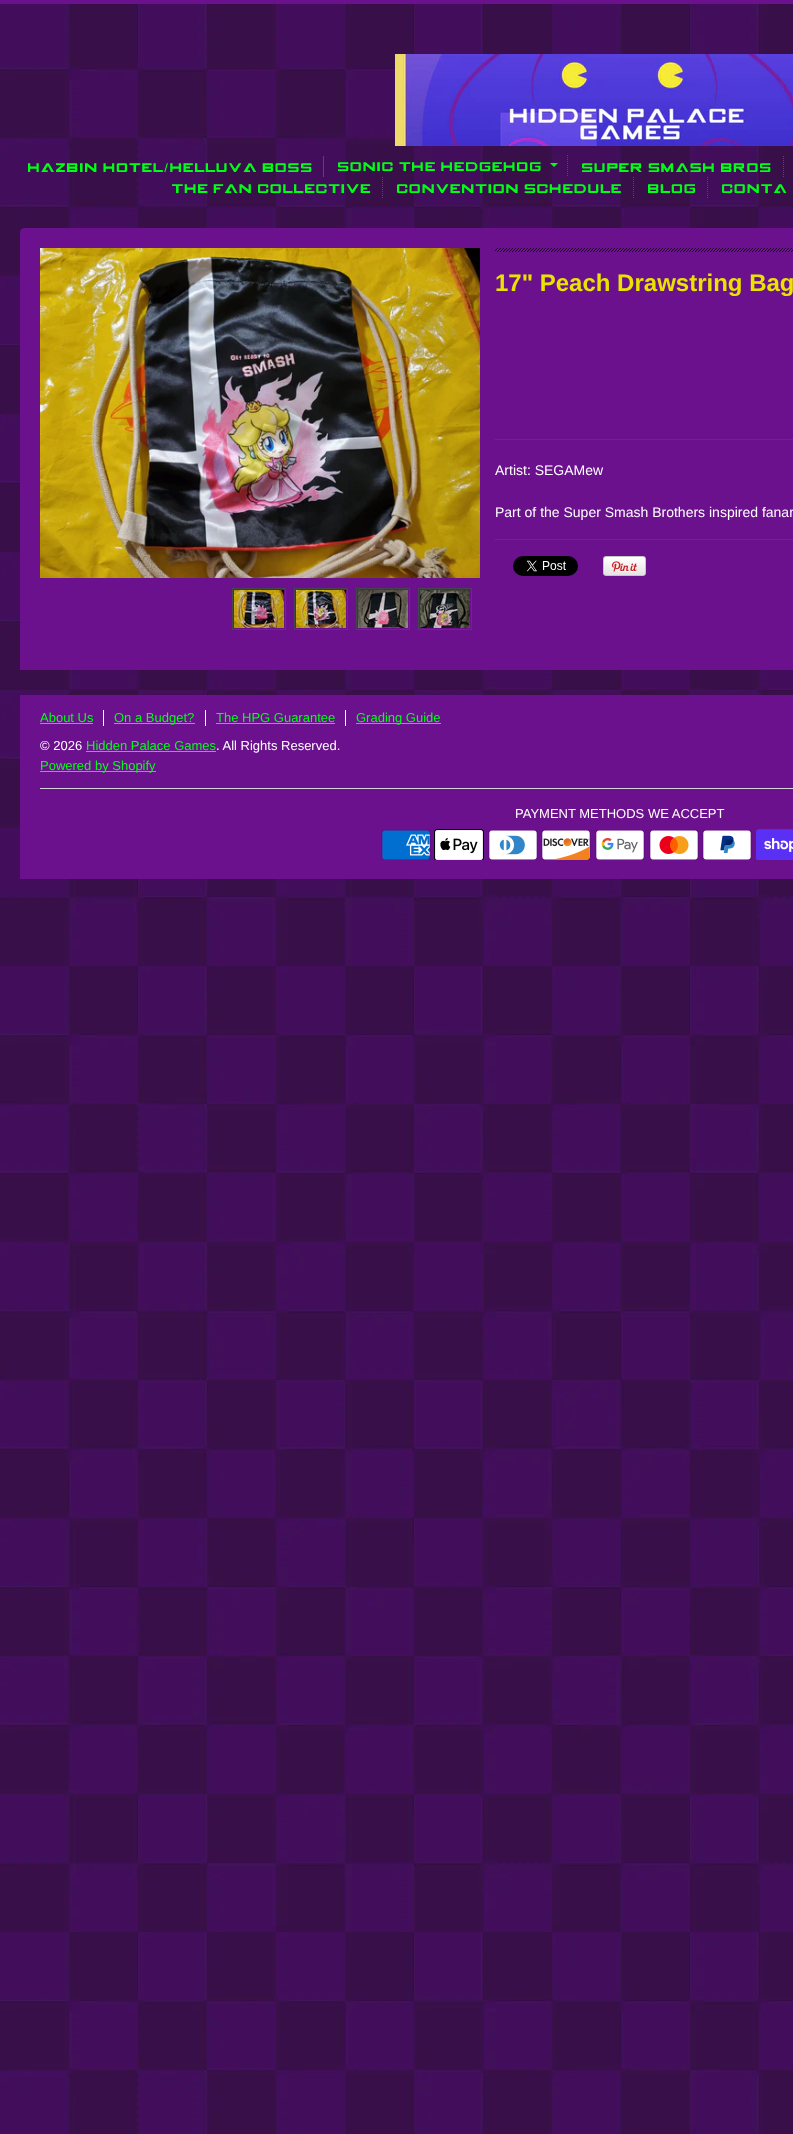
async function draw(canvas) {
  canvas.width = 793;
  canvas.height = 2134;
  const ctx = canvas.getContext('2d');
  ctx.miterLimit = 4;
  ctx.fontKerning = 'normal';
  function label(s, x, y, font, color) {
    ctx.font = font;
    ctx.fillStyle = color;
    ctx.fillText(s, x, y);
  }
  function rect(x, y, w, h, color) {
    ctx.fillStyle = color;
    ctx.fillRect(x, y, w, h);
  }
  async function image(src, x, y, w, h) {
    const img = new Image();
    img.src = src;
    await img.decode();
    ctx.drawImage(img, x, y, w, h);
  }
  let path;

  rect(0, 0, 793, 2134, '#fff');
  await image('assets/img1.png', 0, 4, 793, 2130);
  rect(0, 0, 793, 4, '#6b118d');
  await image('assets/img2.png', 395, 54, 398, 92);
  rect(323, 156, 1, 21, '#554b60');
  label('HAZBIN HOTEL/HELLUVA BOSS', 28, 172, '11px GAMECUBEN', '#00ff15');
  path = new Path2D('M567.5 155V176');
  ctx.strokeStyle = '#554b60';
  ctx.setLineDash([1, 1]);
  ctx.stroke(path);
  label('SONIC THE HEDGEHOG', 338, 171, '11px GAMECUBEN', '#00ff15');
  path = new Path2D('M550 163H558L554 167Z');
  ctx.fill(path);
  path = new Path2D('M783.5 156V177');
  ctx.stroke(path);
  label('SUPER SMASH BROS', 582, 172, '11px GAMECUBEN', '#00ff15');
  path = new Path2D('M382.5 177V198');
  ctx.stroke(path);
  label('THE FAN COLLECTIVE', 172, 193, '11px GAMECUBEN', '#00ff15');
  path = new Path2D('M633.5 177V198');
  ctx.stroke(path);
  label('CONVENTION SCHEDULE', 397, 193, '11px GAMECUBEN', '#00ff15');
  path = new Path2D('M707.5 177V198');
  ctx.stroke(path);
  label('BLOG', 648, 193, '11px GAMECUBEN', '#00ff15');
  label('CONTA', 722, 193, '11px GAMECUBEN', '#00ff15');
  ctx.fillStyle = '#6b118d';
  path = new Path2D('M24 228H793C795 228 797 230 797 232V670H20V232C20 230 22 228 24 228Z');
  ctx.fill(path);
  await image('assets/img3.png', 40, 248, 440, 330);
  ctx.strokeStyle = '#41474a';
  ctx.setLineDash([]);
  ctx.strokeRect(232.5, 588.5, 53, 41);
  await image('assets/img4.png', 234, 590, 50, 38);
  ctx.strokeRect(294.5, 588.5, 53, 41);
  await image('assets/img5.png', 296, 590, 50, 38);
  ctx.strokeRect(356.5, 588.5, 53, 41);
  await image('assets/img6.png', 358, 590, 50, 38);
  ctx.strokeRect(418.5, 588.5, 53, 41);
  await image('assets/img7.png', 420, 590, 50, 38);
  await image('assets/img8.png', 495, 248, 298, 4);
  rect(495, 439, 298, 1, '#41474a');
  label('17" Peach Drawstring Bag', 495, 291, 'bold 24px Liberation Sans', '#e8e400');
  label('Artist: SEGAMew', 495, 475, '14px Liberation Sans', '#fff');
  label('Part of the Super Smash Brothers inspired fanar', 495, 517, '14px Liberation Sans', '#fff');
  rect(495, 539, 298, 1, '#41474a');
  await image('assets/img9.png', 513, 556, 65, 20);
  await image('assets/img10.png', 603, 556, 43, 20);
  rect(20, 695, 773, 184, '#6b118d');
  label('About Us', 40, 722, '13px Liberation Sans', '#00ff15');
  rect(40, 723, 53, 1, '#00ff15');
  rect(103, 710, 1, 16, '#fff');
  rect(114, 723, 81, 1, '#00ff15');
  label('On a Budget?', 114, 722, '13px Liberation Sans', '#00ff15');
  rect(205, 710, 1, 16, '#fff');
  label('The HPG Guarantee', 216, 722, '13px Liberation Sans', '#00ff15');
  rect(216, 723, 119, 1, '#00ff15');
  rect(345, 710, 1, 16, '#fff');
  rect(356, 723, 85, 1, '#00ff15');
  label('Grading Guide', 356, 722, '13px Liberation Sans', '#00ff15');
  label('© 2026', 40, 750, '13px Liberation Sans', '#fff');
  label('Hidden Palace Games', 86, 750, '13px Liberation Sans', '#00ff15');
  rect(86, 751, 130, 1, '#00ff15');
  label('. All Rights Reserved.', 216, 750, '13px Liberation Sans', '#fff');
  rect(40, 771, 116, 1, '#00ff15');
  label('Powered by Shopify', 40, 770, '13px Liberation Sans', '#00ff15');
  rect(40, 788, 753, 1, '#d7d7d7');
  label('PAYMENT METHODS WE ACCEPT', 515, 818, '13px Liberation Sans', '#fff');
  await image('assets/img11.png', 381, 829, 50, 31);
  await image('assets/img12.png', 434, 829, 50, 31);
  await image('assets/img13.png', 488, 829, 50, 31);
  await image('assets/img14.png', 541, 829, 50, 31);
  await image('assets/img15.png', 595, 829, 50, 31);
  await image('assets/img16.png', 649, 829, 50, 31);
  await image('assets/img17.png', 702, 829, 50, 31);
  await image('assets/img18.png', 756, 829, 37, 31);
}

draw(document.querySelector('canvas'));
